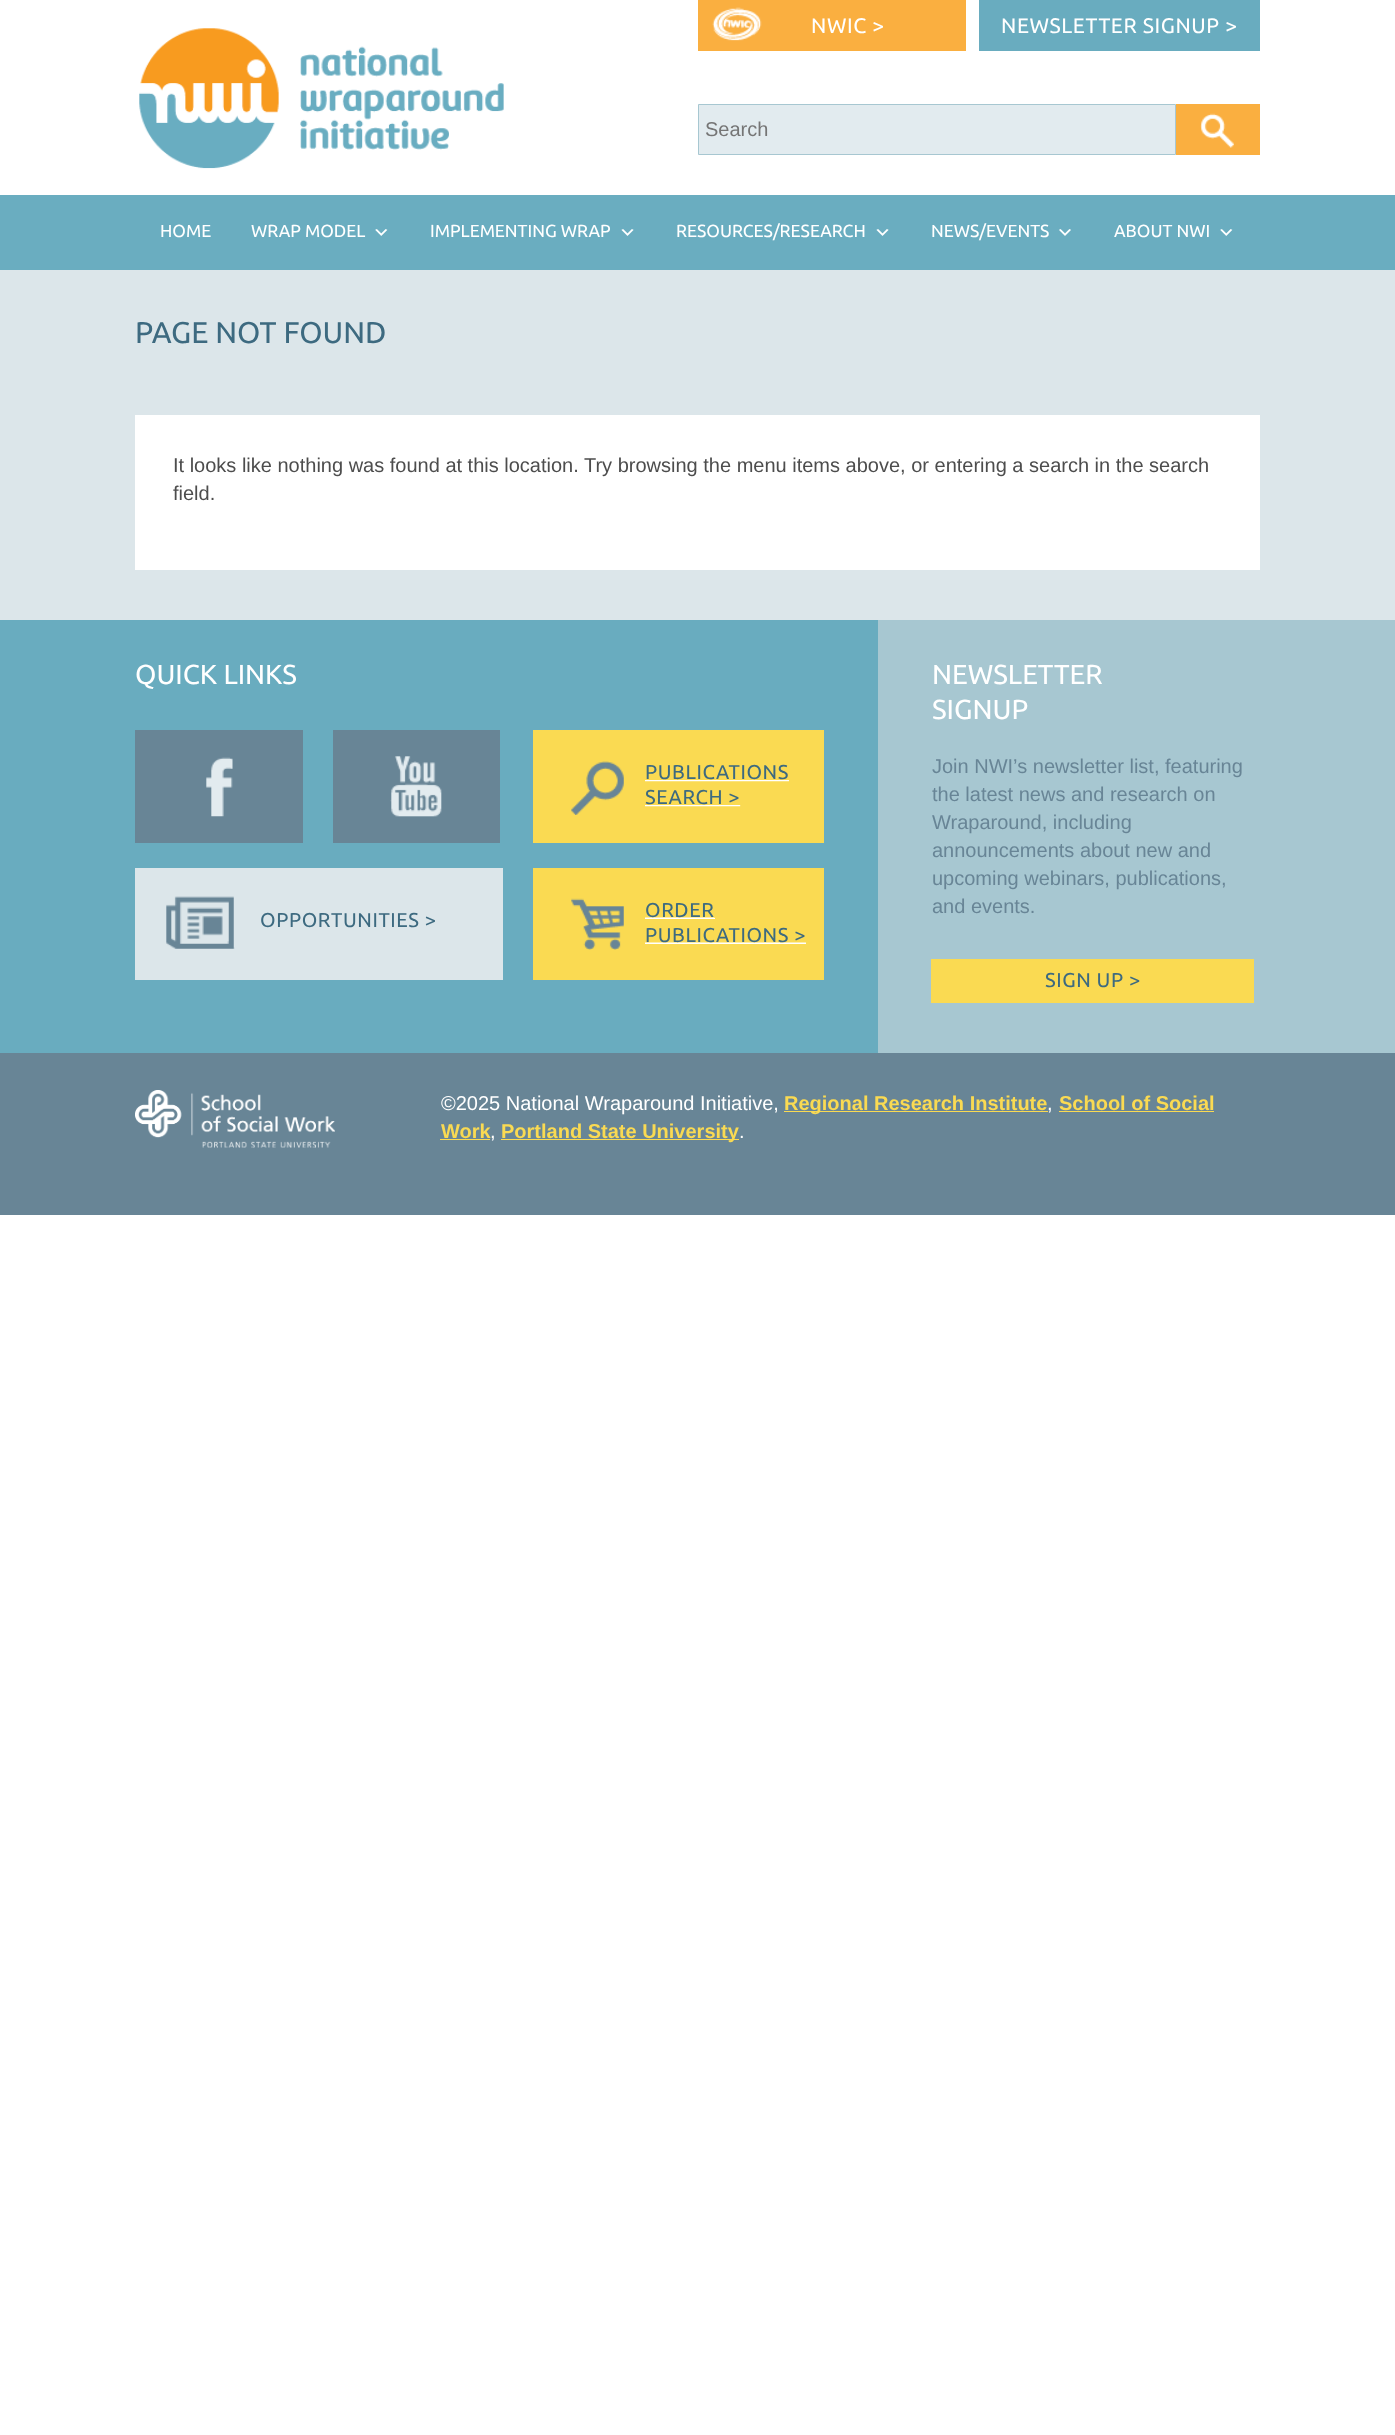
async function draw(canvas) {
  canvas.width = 1395;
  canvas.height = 2435;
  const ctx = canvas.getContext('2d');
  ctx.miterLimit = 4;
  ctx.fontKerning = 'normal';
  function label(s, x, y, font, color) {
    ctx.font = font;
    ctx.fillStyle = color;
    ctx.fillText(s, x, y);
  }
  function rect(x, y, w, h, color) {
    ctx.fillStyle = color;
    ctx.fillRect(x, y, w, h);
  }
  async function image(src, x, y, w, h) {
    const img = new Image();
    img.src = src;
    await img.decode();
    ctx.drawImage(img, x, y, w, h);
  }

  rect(0, 0, 1395, 2435, '#fff');
  await image('assets/img1.png', 139, 28, 365, 141);
  rect(698, 0, 268, 51, '#faaf40');
  await image('assets/img2.png', 712, 7, 50, 34);
  ctx.letterSpacing = '0.6px';
  label('NWIC >', 811, 33, '21px Ubuntu', '#fff');
  rect(979, 0, 281, 51, '#69acbf');
  label('NEWSLETTER SIGNUP >', 1001, 33, '21px Ubuntu', '#fff');
  ctx.fillStyle = '#e2ebef';
  ctx.beginPath();
  ctx.rect(698.5, 104.5, 477, 50);
  ctx.fill();
  ctx.strokeStyle = '#a7c7d1';
  ctx.stroke();
  ctx.letterSpacing = '0px';
  label('Search', 705, 136, '20px Liberation Sans', '#757575');
  rect(1176, 104, 84, 51, '#faaf40');
  await image('assets/img3.png', 1200, 113, 34, 35);
  rect(0, 195, 1395, 75, '#6aadc0');
  label('HOME', 160, 237, '17.5px Ubuntu', '#fff');
  label('WRAP MODEL', 251, 237, '17.5px Ubuntu', '#fff');
  await image('assets/img4.png', 375, 229, 13, 7);
  label('IMPLEMENTING WRAP', 430, 237, '17.5px Ubuntu', '#fff');
  await image('assets/img5.png', 621, 229, 13, 7);
  label('RESOURCES/RESEARCH', 676, 237, '17.5px Ubuntu', '#fff');
  await image('assets/img5.png', 876, 229, 13, 7);
  label('NEWS/EVENTS', 931, 237, '17.5px Ubuntu', '#fff');
  await image('assets/img6.png', 1059, 229, 12, 7);
  label('ABOUT NWI', 1114, 237, '17.5px Ubuntu', '#fff');
  await image('assets/img4.png', 1220, 229, 13, 7);
  rect(0, 270, 1395, 350, '#dce6ea');
  label('PAGE NOT FOUND', 135, 343, '30px Ubuntu', '#3d6a80');
  rect(135, 415, 1125, 155, '#fff');
  label('It looks like nothing was found at this location. Try browsing the menu items above, or entering a search in the search', 173, 472, '20px Liberation Sans', '#4d4d4d');
  label('field.', 173, 500, '20px Liberation Sans', '#4d4d4d');
  rect(0, 620, 878, 433, '#69acbf');
  rect(878, 620, 517, 433, '#a7c7d1');
  label('QUICK LINKS', 135, 684, '27.5px Ubuntu', '#fff');
  rect(135, 730, 168, 113, '#688596');
  await image('assets/img7.png', 206, 757, 27, 60);
  rect(333, 730, 167, 113, '#688596');
  await image('assets/img8.png', 390, 756, 52, 61);
  rect(135, 868, 368, 112, '#dce6ea');
  await image('assets/img9.png', 166, 896, 69, 53);
  ctx.letterSpacing = '0.6px';
  label('OPPORTUNITIES >', 260, 927, '20px Ubuntu', '#3d6a80');
  rect(533, 730, 291, 113, '#fada52');
  await image('assets/img10.png', 571, 761, 218, 54);
  label('PUBLICATIONS', 645, 779, '20px Ubuntu', '#3d6a80');
  rect(788, 780, 1, 1, '#fff');
  label('SEARCH >', 645, 804, '20px Ubuntu', '#3d6a80');
  rect(533, 868, 291, 112, '#fada52');
  await image('assets/img11.png', 571, 898, 236, 52);
  label('ORDER', 645, 917, '20px Ubuntu', '#3d6a80');
  rect(645, 918, 70, 1, '#fff');
  label('PUBLICATIONS >', 645, 942, '20px Ubuntu', '#3d6a80');
  rect(645, 943, 161, 1, '#fff');
  ctx.letterSpacing = '0px';
  label('NEWSLETTER', 932, 684, '27.5px Ubuntu', '#fff');
  label('SIGNUP', 932, 719, '27.5px Ubuntu', '#fff');
  label('Join NWI’s newsletter list, featuring', 932, 773, '20px Liberation Sans', '#688596');
  label('the latest news and research on', 932, 801, '20px Liberation Sans', '#688596');
  label('Wraparound, including', 932, 829, '20px Liberation Sans', '#688596');
  label('announcements about new and', 932, 857, '20px Liberation Sans', '#688596');
  label('upcoming webinars, publications,', 932, 885, '20px Liberation Sans', '#688596');
  label('and events.', 932, 913, '20px Liberation Sans', '#688596');
  rect(931, 959, 323, 44, '#fada52');
  ctx.letterSpacing = '0.6px';
  label('SIGN UP >', 1045, 987, '20px Ubuntu', '#3d6a80');
  rect(0, 1053, 1395, 162, '#688596');
  await image('assets/img12.png', 135, 1090, 200, 58);
  ctx.letterSpacing = '0px';
  label('©2025 National Wraparound Initiative,', 441, 1110, '20px Liberation Sans', '#fff');
  rect(784, 1111, 264, 1, '#fada52');
  label('Regional Research Institute', 784, 1110, 'bold 20px Liberation Sans', '#fada52');
  label(',', 1047, 1110, '20px Liberation Sans', '#fff');
  label('School of Social', 1059, 1110, 'bold 20px Liberation Sans', '#fada52');
  rect(1059, 1111, 155, 1, '#fada52');
  label('Work', 441, 1138, 'bold 20px Liberation Sans', '#fada52');
  rect(440, 1139, 50, 1, '#fada52');
  label(',', 490, 1138, '20px Liberation Sans', '#fff');
  rect(501, 1139, 238, 1, '#fada52');
  label('Portland State University', 501, 1138, 'bold 20px Liberation Sans', '#fada52');
  label('.', 739, 1138, '20px Liberation Sans', '#fff');
}

draw(document.querySelector('canvas'));
